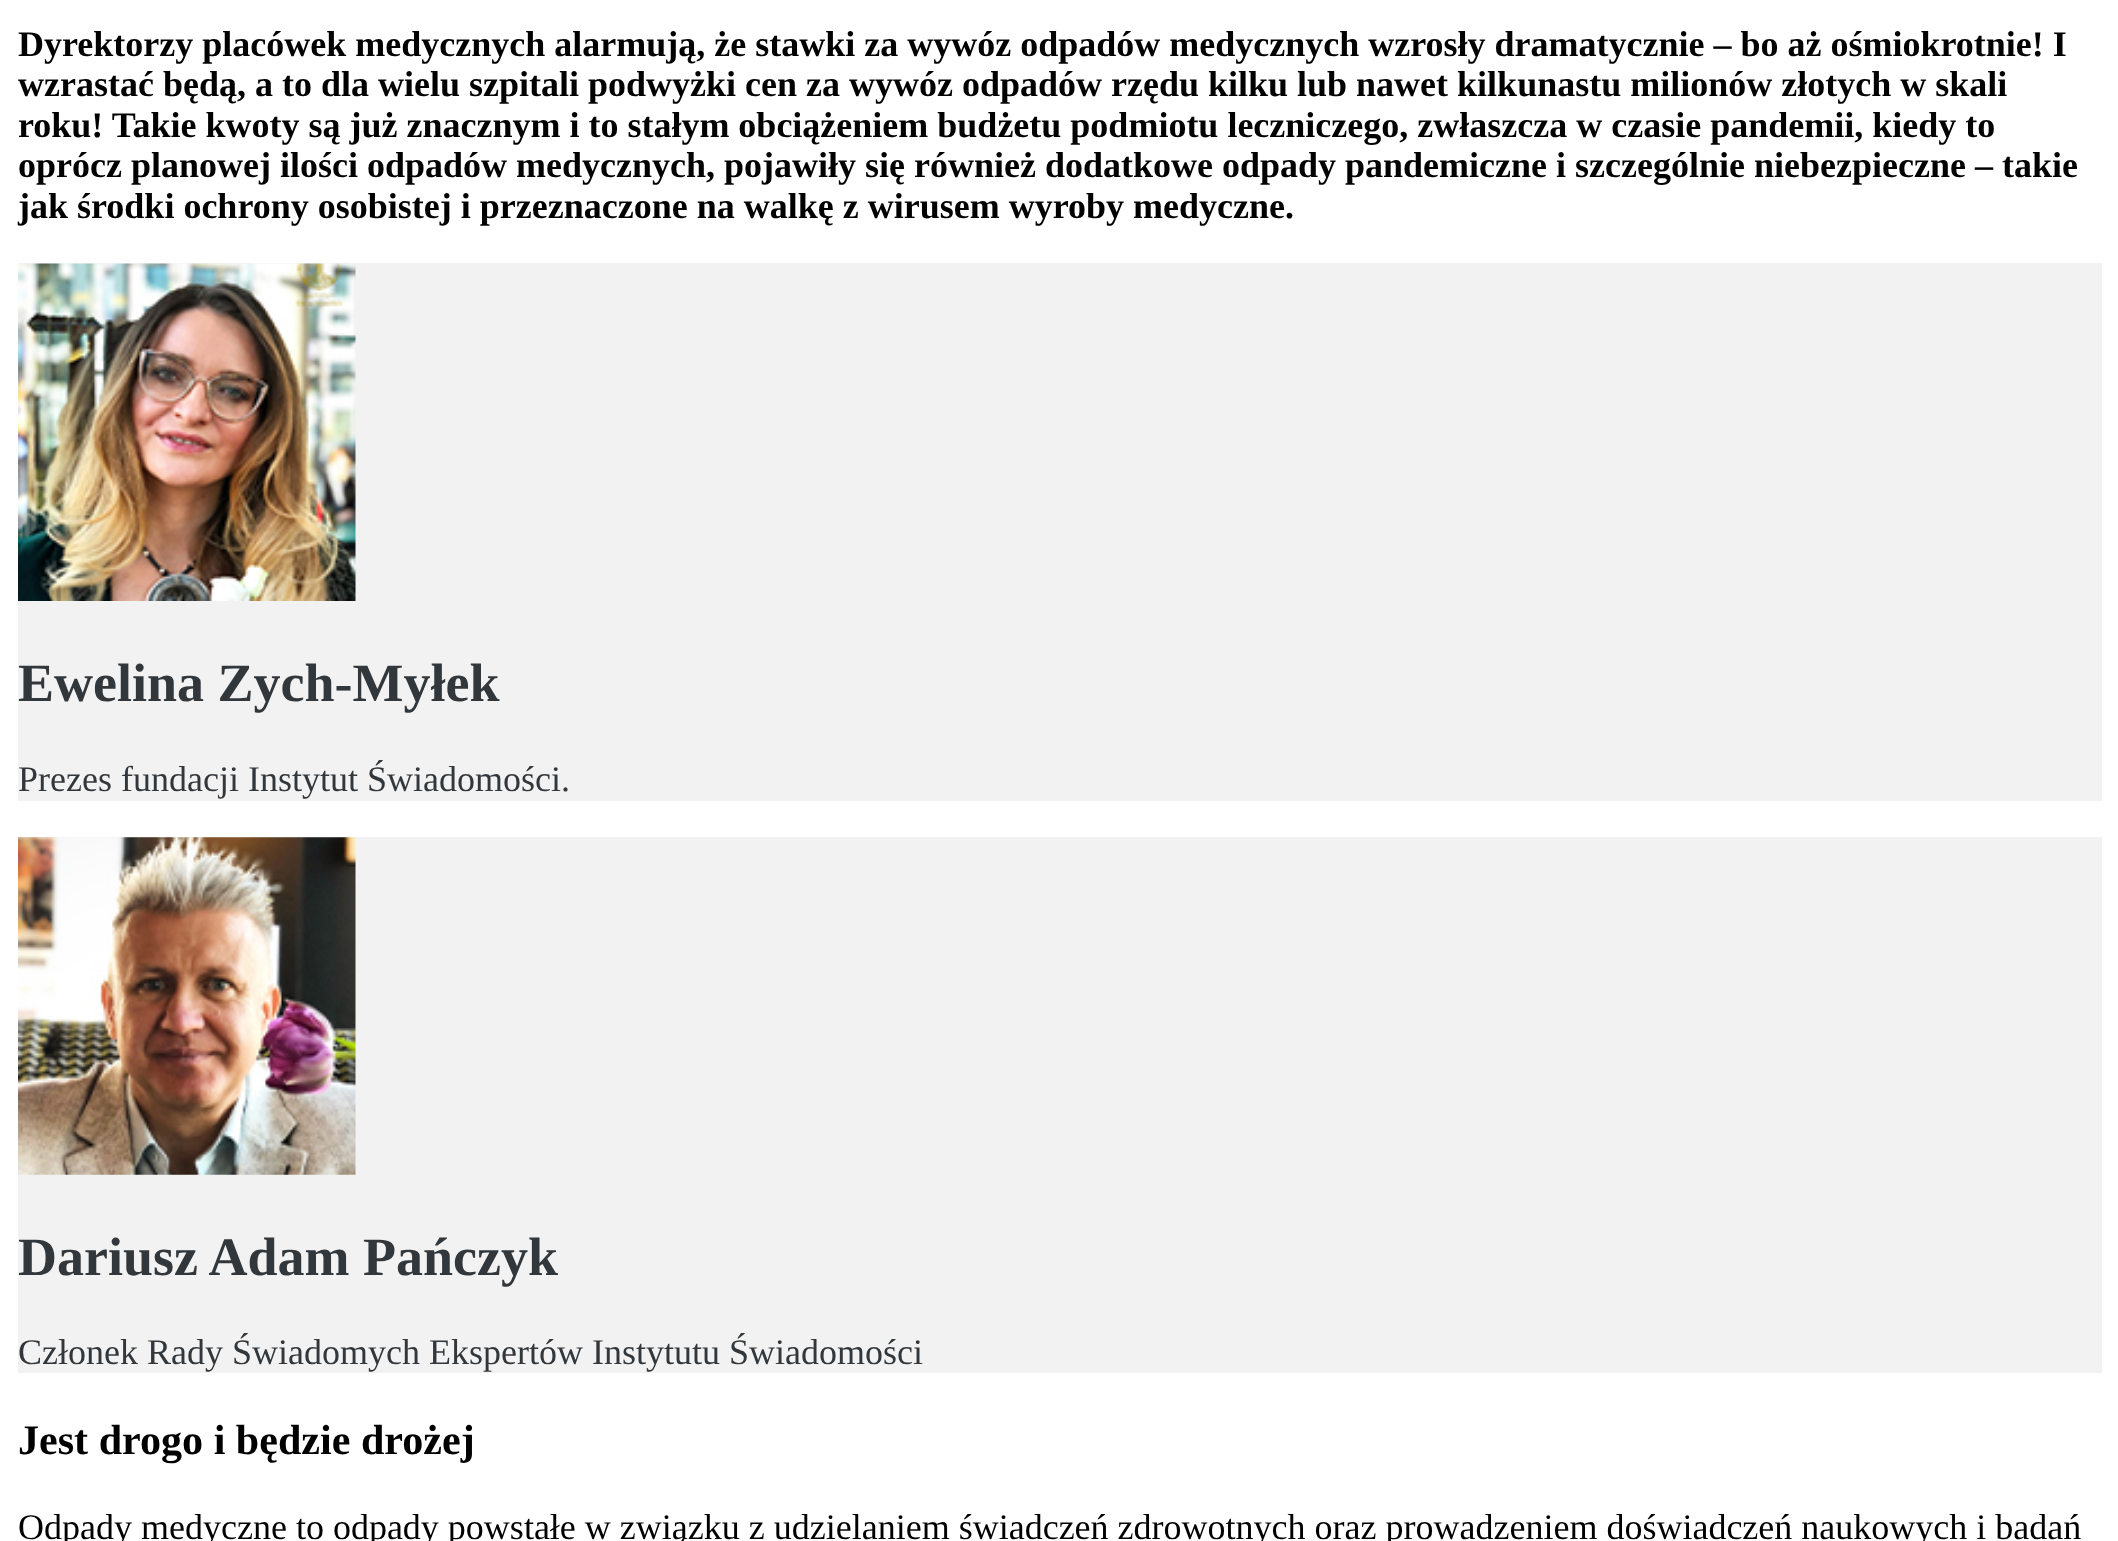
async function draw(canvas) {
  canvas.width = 2118;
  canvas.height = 1541;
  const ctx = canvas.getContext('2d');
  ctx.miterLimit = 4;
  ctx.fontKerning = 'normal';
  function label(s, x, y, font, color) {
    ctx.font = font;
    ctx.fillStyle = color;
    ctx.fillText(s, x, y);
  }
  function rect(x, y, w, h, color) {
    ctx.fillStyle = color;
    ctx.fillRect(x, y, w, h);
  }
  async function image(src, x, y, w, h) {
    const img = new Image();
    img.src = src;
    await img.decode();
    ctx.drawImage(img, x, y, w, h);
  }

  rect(0, 0, 2118, 1541, '#fff');
  label('Dyrektorzy placówek medycznych alarmują, że stawki za wywóz odpadów medycznych wzrosły dramatycznie – bo aż ośmiokrotnie! I', 18, 56, 'bold 36px Liberation Serif', '#000');
  label('wzrastać będą, a to dla wielu szpitali podwyżki cen za wywóz odpadów rzędu kilku lub nawet kilkunastu milionów złotych w skali', 18, 96, 'bold 36px Liberation Serif', '#000');
  label('roku! Takie kwoty są już znacznym i to stałym obciążeniem budżetu podmiotu leczniczego, zwłaszcza w czasie pandemii, kiedy to', 18, 137, 'bold 36px Liberation Serif', '#000');
  label('oprócz planowej ilości odpadów medycznych, pojawiły się również dodatkowe odpady pandemiczne i szczególnie niebezpieczne – takie', 18, 177, 'bold 36px Liberation Serif', '#000');
  label('jak środki ochrony osobistej i przeznaczone na walkę z wirusem wyroby medyczne.', 18, 218, 'bold 36px Liberation Serif', '#000');
  rect(18, 263, 2084, 538, '#f2f2f2');
  await image('assets/img1.png', 18, 263, 338, 338);
  label('Ewelina Zych-Myłek', 18, 701, 'bold 54px Liberation Serif', '#32373c');
  label('Prezes fundacji Instytut Świadomości.', 18, 791, '36px Liberation Serif', '#32373c');
  rect(18, 837, 2084, 536, '#f2f2f2');
  await image('assets/img2.png', 18, 837, 338, 338);
  label('Dariusz Adam Pańczyk', 18, 1275, 'bold 54px Liberation Serif', '#32373c');
  label('Członek Rady Świadomych Ekspertów Instytutu Świadomości', 18, 1364, '36px Liberation Serif', '#32373c');
  label('Jest drogo i będzie drożej', 18, 1454, 'bold 42.1px Liberation Serif', '#000');
  label('Odpady medyczne to odpady powstałe w związku z udzielaniem świadczeń zdrowotnych oraz prowadzeniem doświadczeń naukowych i badań', 18, 1539, '36px Liberation Serif', '#000');
}

draw(document.querySelector('canvas'));
